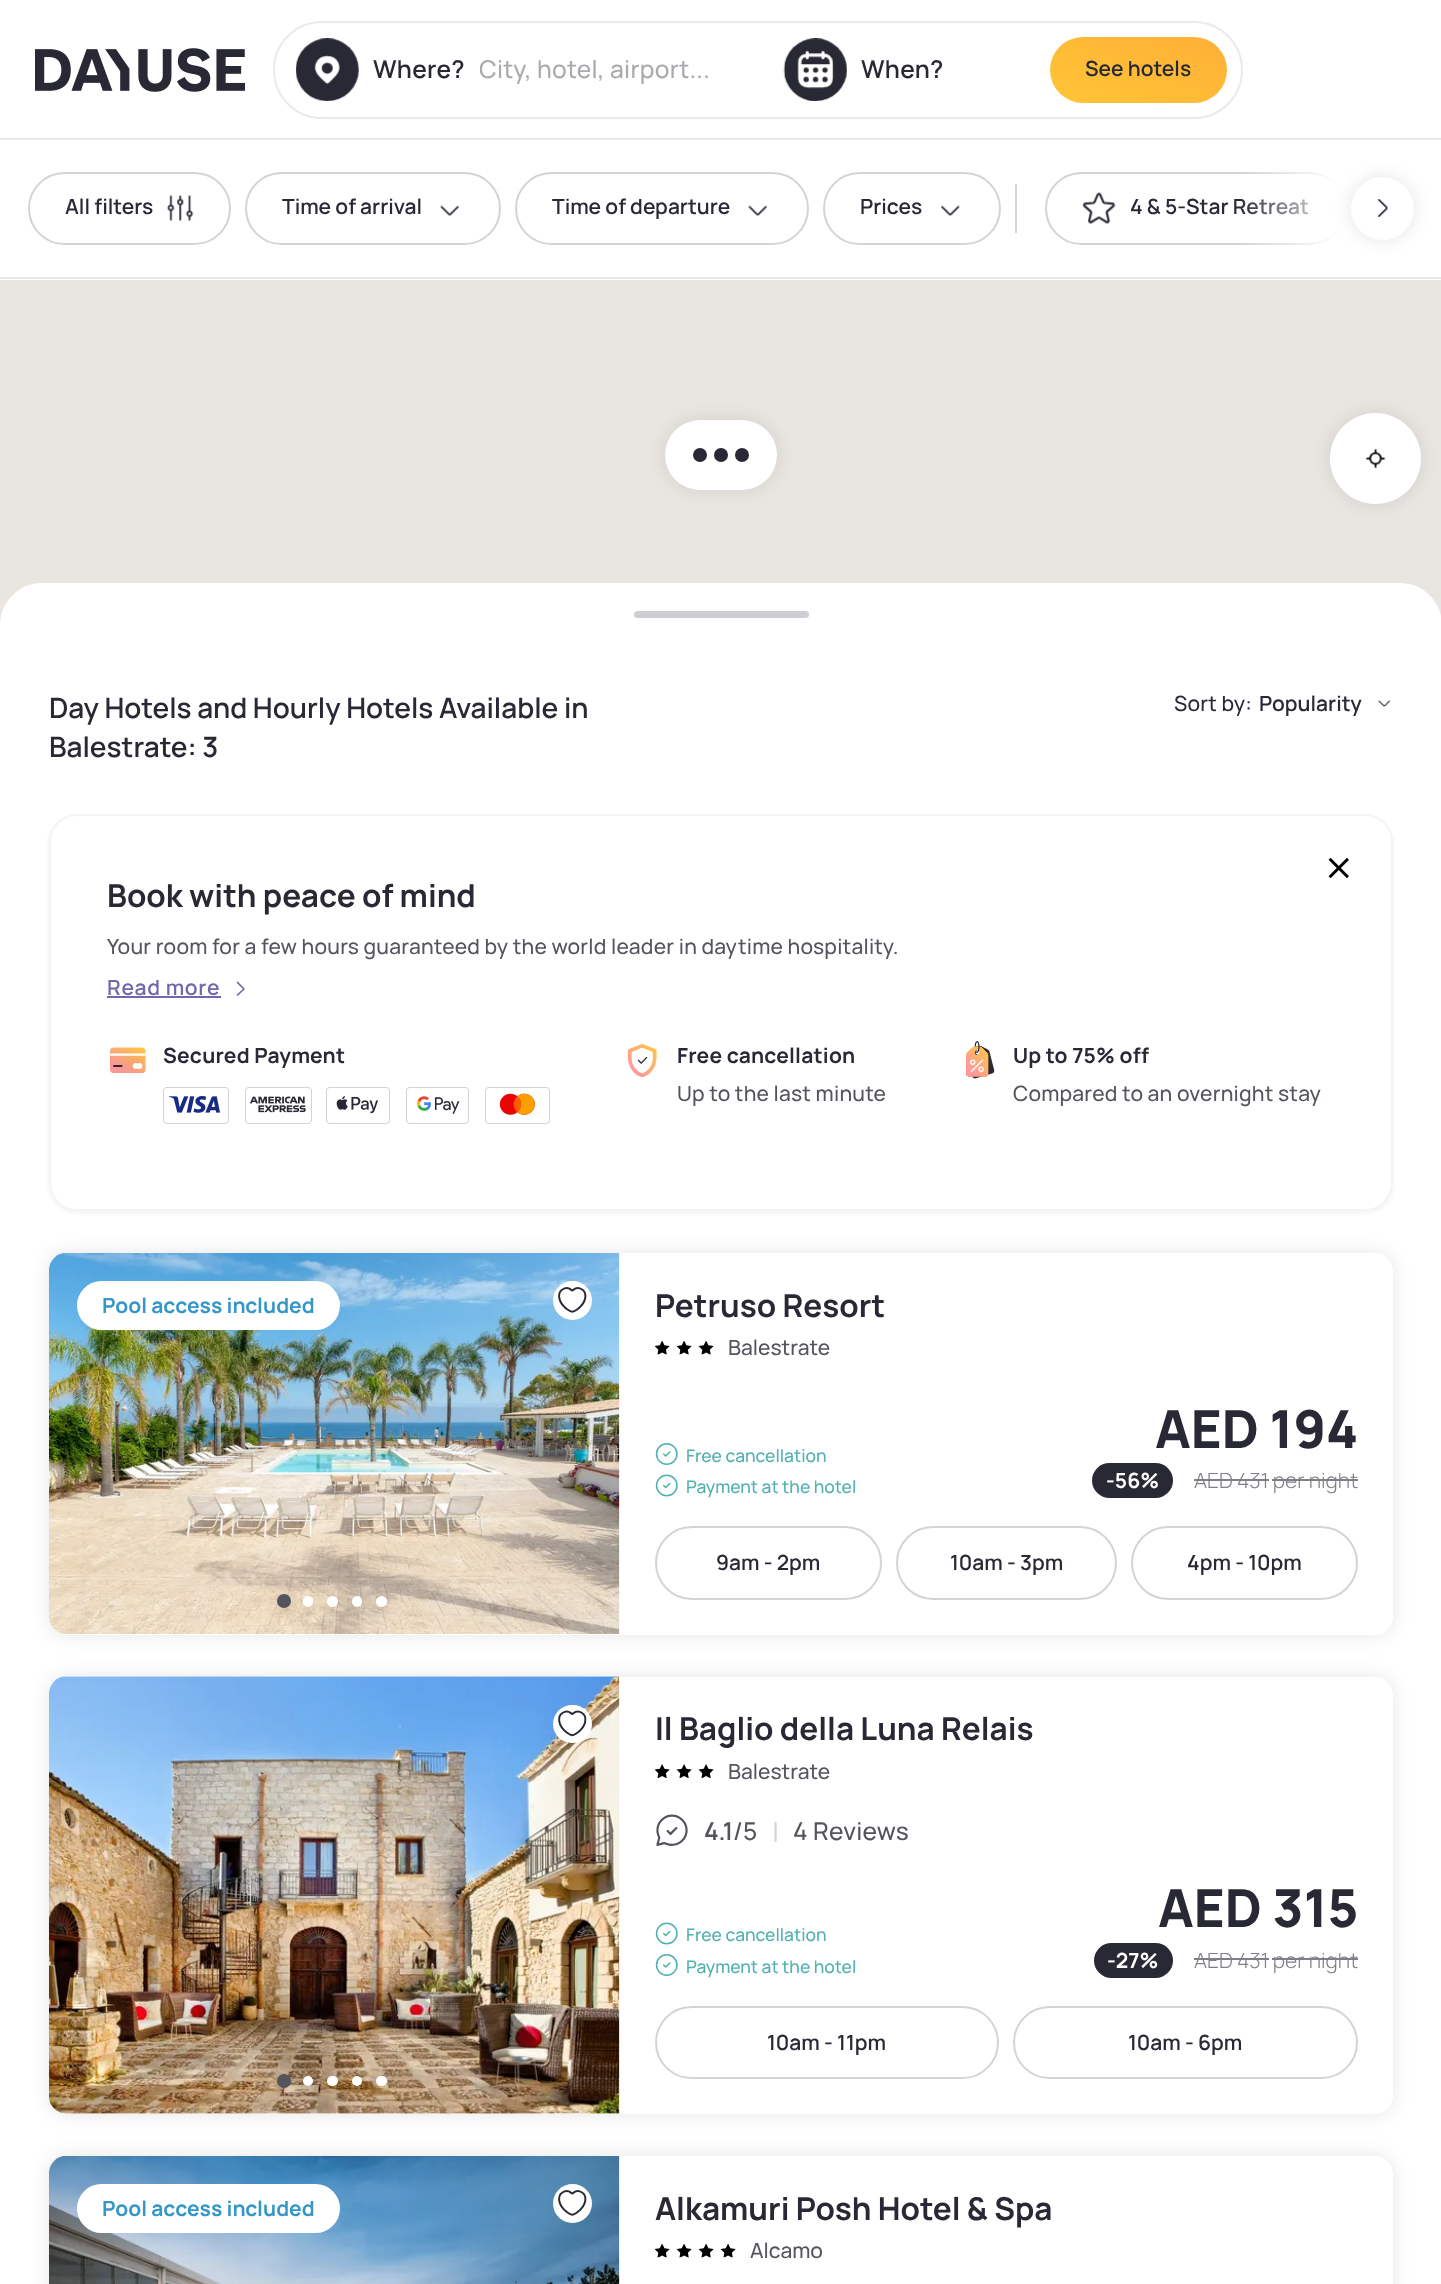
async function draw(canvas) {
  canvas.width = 1441;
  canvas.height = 2284;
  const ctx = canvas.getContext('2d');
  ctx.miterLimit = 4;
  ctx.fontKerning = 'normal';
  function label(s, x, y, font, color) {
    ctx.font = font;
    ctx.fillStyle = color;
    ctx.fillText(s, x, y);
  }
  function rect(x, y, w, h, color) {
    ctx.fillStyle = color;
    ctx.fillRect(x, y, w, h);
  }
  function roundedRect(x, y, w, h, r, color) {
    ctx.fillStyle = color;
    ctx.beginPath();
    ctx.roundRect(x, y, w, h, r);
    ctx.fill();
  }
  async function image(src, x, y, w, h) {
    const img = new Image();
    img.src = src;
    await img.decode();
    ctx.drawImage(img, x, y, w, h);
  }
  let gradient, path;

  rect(0, 0, 1441, 2284, '#fff');
  rect(0, 138, 1441, 2, '#e5e7eb');
  await image('assets/img1.png', 35, 48, 210, 44);
  ctx.beginPath();
  ctx.roundRect(274, 22, 968, 96, 48);
  ctx.strokeStyle = '#eaeaeb';
  ctx.lineWidth = 2;
  ctx.stroke();
  await image('assets/img2.png', 296, 38, 63, 63);
  ctx.letterSpacing = '0.25px';
  label('Where?', 373, 78, '600 24.5px Manrope', '#292935');
  ctx.save();
  ctx.beginPath();
  ctx.rect(480, 51, 231, 38);
  ctx.clip();
  label('City, hotel, airport...', 479, 78, '500 24.5px Manrope', '#a9a9ae');
  ctx.restore();
  await image('assets/img3.png', 783, 38, 64, 63);
  label('When?', 861, 78, '600 24.5px Manrope', '#292935');
  gradient = ctx.createLinearGradient(1160, 12, 1116, 128);
  gradient.addColorStop(0, '#ffaf36');
  gradient.addColorStop(1, '#ffc536');
  ctx.fillStyle = gradient;
  ctx.beginPath();
  ctx.roundRect(1050, 37, 177, 66, 33);
  ctx.fill();
  ctx.letterSpacing = '0px';
  label('See hotels', 1085, 76, '600 21px Manrope', '#292935');
  rect(0, 277, 1441, 2, '#e5e7eb');
  ctx.beginPath();
  ctx.roundRect(29, 173, 201, 71, 35.5);
  ctx.strokeStyle = '#d4d4d7';
  ctx.stroke();
  label('All filters', 65, 214, '600 21px Manrope', '#292935');
  await image('assets/img4.png', 167, 195, 27, 26);
  ctx.beginPath();
  ctx.roundRect(246, 173, 254, 71, 35.5);
  ctx.stroke();
  label('Time of arrival', 282, 214, '600 21px Manrope', '#292935');
  await image('assets/img5.png', 440, 205, 20, 11);
  ctx.beginPath();
  ctx.roundRect(516, 173, 292, 71, 35.5);
  ctx.stroke();
  label('Time of departure', 552, 214, '600 21px Manrope', '#292935');
  await image('assets/img5.png', 748, 205, 20, 11);
  ctx.beginPath();
  ctx.roundRect(824, 173, 176, 71, 35.5);
  ctx.stroke();
  label('Prices', 860, 214, '600 21px Manrope', '#292935');
  await image('assets/img6.png', 941, 205, 19, 11);
  rect(1015, 184, 2, 49, '#d4d4d7');
  ctx.beginPath();
  ctx.roundRect(1046, 173, 299, 71, 35.5);
  ctx.stroke();
  await image('assets/img7.png', 1082, 192, 34, 32);
  label('4 & 5-Star Retreat', 1130, 214, '600 21px Manrope', '#292935');
  gradient = ctx.createLinearGradient(1414, 208, 1239, 208);
  gradient.addColorStop(0.4, '#fff');
  gradient.addColorStop(1, '#ffffff00');
  ctx.fillStyle = gradient;
  ctx.fillRect(1241, 172, 105, 73);
  ctx.fillStyle = '#0000001a';
  ctx.filter = 'blur(9px)';
  ctx.beginPath();
  ctx.roundRect(1351, 177, 63, 63, 31.5);
  ctx.fill();
  ctx.filter = 'none';
  ctx.fillStyle = '#fff';
  ctx.beginPath();
  ctx.arc(1382.5, 208.5, 31.5, 0, 2 * Math.PI);
  ctx.fill();
  await image('assets/img8.png', 1377, 199, 11, 18);
  rect(0, 280, 1441, 345, '#e9e6e2');
  ctx.fillStyle = '#0000001a';
  ctx.filter = 'blur(9px)';
  ctx.beginPath();
  ctx.roundRect(665, 420, 112, 70, 35);
  ctx.fill();
  ctx.filter = 'none';
  roundedRect(665, 420, 112, 70, 35, '#fff');
  ctx.fillStyle = '#292935';
  ctx.beginPath();
  ctx.arc(700, 455, 7, 0, 2 * Math.PI);
  ctx.fill();
  ctx.beginPath();
  ctx.arc(721, 455, 7, 0, 2 * Math.PI);
  ctx.fill();
  ctx.beginPath();
  ctx.arc(742, 455, 7, 0, 2 * Math.PI);
  ctx.fill();
  ctx.fillStyle = '#0000001a';
  ctx.filter = 'blur(9px)';
  ctx.beginPath();
  ctx.roundRect(1330, 413, 91, 91, 45.5);
  ctx.fill();
  ctx.filter = 'none';
  ctx.fillStyle = '#fff';
  ctx.beginPath();
  ctx.arc(1375.5, 458.5, 45.5, 0, 2 * Math.PI);
  ctx.fill();
  await image('assets/img9.png', 1365, 448, 21, 21);
  path = new Path2D('M42 583H1400C1423 583 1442 602 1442 625V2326H0V625C0 602 19 583 42 583Z');
  ctx.fill(path);
  roundedRect(634, 611, 175, 7, 3.5, '#d0ccd3');
  label('Day Hotels and Hourly Hotels Available in', 49, 718, '600 28px Manrope', '#292935');
  label('Balestrate: 3', 49, 757, '600 28px Manrope', '#292935');
  ctx.letterSpacing = '0.2px';
  label('Sort by:', 1174, 711, '500 21px Manrope', '#292935');
  ctx.letterSpacing = '0px';
  label('Popularity', 1259, 711, '600 21px Manrope', '#292935');
  await image('assets/img10.png', 1378, 700, 13, 7);
  ctx.fillStyle = '#0000000d';
  ctx.filter = 'blur(2px)';
  ctx.beginPath();
  ctx.roundRect(49, 816, 1344, 397, 28);
  ctx.fill();
  ctx.filter = 'none';
  ctx.fillStyle = '#fff';
  ctx.beginPath();
  ctx.roundRect(50, 815, 1342, 395, 27);
  ctx.fill();
  ctx.strokeStyle = '#f3f4f6';
  ctx.stroke();
  await image('assets/img11.png', 1328, 857, 21, 22);
  label('Book with peace of mind', 107, 907, 'bold 31.5px Manrope', '#292935');
  ctx.letterSpacing = '0.2px';
  label('Your room for a few hours guaranteed by the world leader in daytime hospitality.', 107, 954, '500 21px Manrope', '#54545d');
  ctx.letterSpacing = '0.75px';
  label('Read more', 107, 995, '600 21px Manrope', '#6e69ac');
  rect(107, 996, 114, 2, '#6e69ac');
  path = new Path2D('M237.5 982.5L244 989L237.5 995');
  ctx.strokeStyle = '#6e69ac';
  ctx.lineWidth = 1.7;
  ctx.lineCap = 'round';
  ctx.lineJoin = 'round';
  ctx.stroke(path);
  await image('assets/img12.png', 110, 1047, 36, 28);
  ctx.letterSpacing = '0.2px';
  label('Secured Payment', 163, 1063, 'bold 21px Manrope', '#292935');
  await image('assets/img13.png', 163, 1087, 66, 37);
  await image('assets/img14.png', 245, 1087, 67, 37);
  await image('assets/img15.png', 326, 1087, 64, 37);
  await image('assets/img16.png', 406, 1087, 63, 37);
  await image('assets/img17.png', 485, 1087, 65, 37);
  await image('assets/img18.png', 627, 1044, 30, 34);
  label('Free cancellation', 677, 1063, 'bold 21px Manrope', '#292935');
  label('Up to the last minute', 677, 1101, '500 21px Manrope', '#54545d');
  await image('assets/img19.png', 966, 1041, 29, 38);
  label('Up to 75% off', 1013, 1063, 'bold 21px Manrope', '#292935');
  label('Compared to an overnight stay', 1013, 1101, '500 21px Manrope', '#54545d');
  ctx.fillStyle = '#0000001a';
  ctx.filter = 'blur(9px)';
  ctx.beginPath();
  ctx.roundRect(49, 1253, 1344, 382, 18);
  ctx.fill();
  ctx.filter = 'none';
  roundedRect(49, 1253, 1344, 382, 18, '#fff');
  await image('assets/img20.png', 49, 1253, 571, 381);
  ctx.fillStyle = '#0000001a';
  ctx.filter = 'blur(5px)';
  ctx.beginPath();
  ctx.roundRect(278, 1603, 11, 11, 5.5);
  ctx.fill();
  ctx.filter = 'none';
  ctx.fillStyle = '#54545d';
  ctx.beginPath();
  ctx.arc(284, 1601, 7, 0, 2 * Math.PI);
  ctx.fill();
  ctx.fillStyle = '#0000001a';
  ctx.filter = 'blur(4px)';
  ctx.beginPath();
  ctx.roundRect(303, 1603, 9, 9, 4.5);
  ctx.fill();
  ctx.filter = 'none';
  roundedRect(303, 1596, 10, 11, 5, '#fff');
  ctx.fillStyle = '#0000001a';
  ctx.filter = 'blur(4px)';
  ctx.beginPath();
  ctx.roundRect(327, 1603, 9, 9, 4.5);
  ctx.fill();
  ctx.filter = 'none';
  ctx.fillStyle = '#fff';
  ctx.beginPath();
  ctx.arc(332.5, 1601.5, 5.5, 0, 2 * Math.PI);
  ctx.fill();
  roundedRect(352, 1596, 10, 11, 5, '#fff');
  ctx.fillStyle = '#0000001a';
  ctx.filter = 'blur(4px)';
  ctx.beginPath();
  ctx.roundRect(376, 1603, 9, 9, 4.5);
  ctx.fill();
  ctx.filter = 'none';
  ctx.fillStyle = '#fff';
  ctx.beginPath();
  ctx.arc(381.5, 1601.5, 5.5, 0, 2 * Math.PI);
  ctx.fill();
  ctx.beginPath();
  ctx.arc(572.5, 1300.5, 19.5, 0, 2 * Math.PI);
  ctx.fill();
  await image('assets/img21.png', 558, 1287, 29, 26);
  roundedRect(77, 1281, 263, 49, 24.5, '#fff');
  ctx.letterSpacing = '0px';
  label('Pool access included', 102, 1313, 'bold 21px Manrope', '#3597c8');
  label('Petruso Resort', 655, 1317, 'bold 31.5px Manrope', '#292935');
  await image('assets/img22.png', 655, 1341, 59, 14);
  label('Balestrate', 728, 1355, '500 21px Manrope', '#54545d');
  await image('assets/img23.png', 655, 1443, 23, 22);
  label('Free cancellation', 686, 1462, '500 17.5px Manrope', '#51b0b0');
  await image('assets/img24.png', 655, 1474, 23, 23);
  label('Payment at the hotel', 686, 1493, '500 17.5px Manrope', '#51b0b0');
  label('AED 194', 1155, 1448, '800 52.5px Manrope', '#292935');
  roundedRect(1092, 1463, 81, 35, 17.5, '#292935');
  label('-56%', 1106, 1488, 'bold 21px Manrope', '#fff');
  label('AED 431 per night', 1194, 1488, '300 21px Manrope', '#7f7f86');
  rect(1194, 1479, 75, 2, '#7f7f86');
  rect(1272, 1479, 86, 2, '#7f7f86');
  ctx.beginPath();
  ctx.roundRect(656, 1527, 225, 72, 36);
  ctx.strokeStyle = '#d4d4d7';
  ctx.lineWidth = 2;
  ctx.lineJoin = 'miter';
  ctx.stroke();
  label('9am - 2pm', 716, 1570, '600 21px Manrope', '#292935');
  ctx.beginPath();
  ctx.roundRect(897, 1527, 219, 72, 36);
  ctx.stroke();
  label('10am - 3pm', 950, 1570, '600 21px Manrope', '#292935');
  ctx.beginPath();
  ctx.roundRect(1132, 1527, 225, 72, 36);
  ctx.stroke();
  label('4pm - 10pm', 1187, 1570, '600 21px Manrope', '#292935');
  ctx.fillStyle = '#0000001a';
  ctx.filter = 'blur(9px)';
  ctx.beginPath();
  ctx.roundRect(49, 1677, 1344, 437, 18);
  ctx.fill();
  ctx.filter = 'none';
  roundedRect(49, 1677, 1344, 437, 18, '#fff');
  await image('assets/img25.png', 49, 1676, 571, 438);
  ctx.fillStyle = '#54545d';
  ctx.beginPath();
  ctx.arc(284, 2081, 7, 0, 2 * Math.PI);
  ctx.fill();
  ctx.fillStyle = '#fff';
  ctx.beginPath();
  ctx.arc(308, 2081, 5, 0, 2 * Math.PI);
  ctx.fill();
  roundedRect(327, 2076, 11, 10, 5, '#fff');
  ctx.beginPath();
  ctx.arc(357, 2081, 5, 0, 2 * Math.PI);
  ctx.fill();
  roundedRect(376, 2076, 11, 10, 5, '#fff');
  roundedRect(553, 1705, 39, 38, 19, '#fff');
  await image('assets/img26.png', 558, 1710, 29, 27);
  label('Il Baglio della Luna Relais', 655, 1740, 'bold 31.5px Manrope', '#292935');
  await image('assets/img27.png', 655, 1764, 59, 14);
  label('Balestrate', 728, 1779, '500 21px Manrope', '#54545d');
  await image('assets/img28.png', 656, 1814, 32, 32);
  ctx.letterSpacing = '0.25px';
  label('4.1', 704, 1840, '600 24.5px Manrope', '#54545d');
  label('/5', 733, 1840, '500 24.5px Manrope', '#54545d');
  ctx.letterSpacing = '0px';
  label('|', 772, 1842, '28px Manrope', '#d4d4d7');
  ctx.letterSpacing = '0.25px';
  label('4 Reviews', 793, 1840, '500 24.5px Manrope', '#54545d');
  await image('assets/img24.png', 655, 1922, 23, 23);
  ctx.letterSpacing = '0px';
  label('Free cancellation', 686, 1941, '500 17.5px Manrope', '#51b0b0');
  await image('assets/img23.png', 655, 1954, 23, 22);
  label('Payment at the hotel', 686, 1973, '500 17.5px Manrope', '#51b0b0');
  label('AED 315', 1158, 1927, '800 52.5px Manrope', '#292935');
  roundedRect(1094, 1943, 79, 35, 17.5, '#292935');
  label('-27%', 1107, 1968, 'bold 21px Manrope', '#fff');
  label('AED 431 per night', 1194, 1968, '300 21px Manrope', '#7f7f86');
  rect(1194, 1958, 75, 2, '#7f7f86');
  rect(1272, 1958, 86, 2, '#7f7f86');
  ctx.beginPath();
  ctx.roundRect(656, 2007, 342, 71, 35.5);
  ctx.stroke();
  label('10am - 11pm', 767, 2050, '600 21px Manrope', '#292935');
  ctx.beginPath();
  ctx.roundRect(1014, 2007, 343, 71, 35.5);
  ctx.stroke();
  label('10am - 6pm', 1128, 2050, '600 21px Manrope', '#292935');
  ctx.fillStyle = '#0000001a';
  ctx.filter = 'blur(9px)';
  ctx.beginPath();
  ctx.roundRect(49, 2156, 1344, 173, 18);
  ctx.fill();
  ctx.filter = 'none';
  roundedRect(49, 2156, 1344, 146, 18, '#fff');
  await image('assets/img29.png', 49, 2156, 571, 128);
  ctx.beginPath();
  ctx.arc(572.5, 2203.5, 19.5, 0, 2 * Math.PI);
  ctx.fill();
  await image('assets/img30.png', 558, 2190, 29, 26);
  roundedRect(77, 2184, 263, 49, 24.5, '#fff');
  label('Pool access included', 102, 2216, 'bold 21px Manrope', '#3597c8');
  label('Alkamuri Posh Hotel & Spa', 655, 2220, 'bold 31.5px Manrope', '#292935');
  await image('assets/img31.png', 655, 2244, 81, 14);
  label('Alcamo', 750, 2258, '500 21px Manrope', '#54545d');
}

draw(document.querySelector('canvas'));
